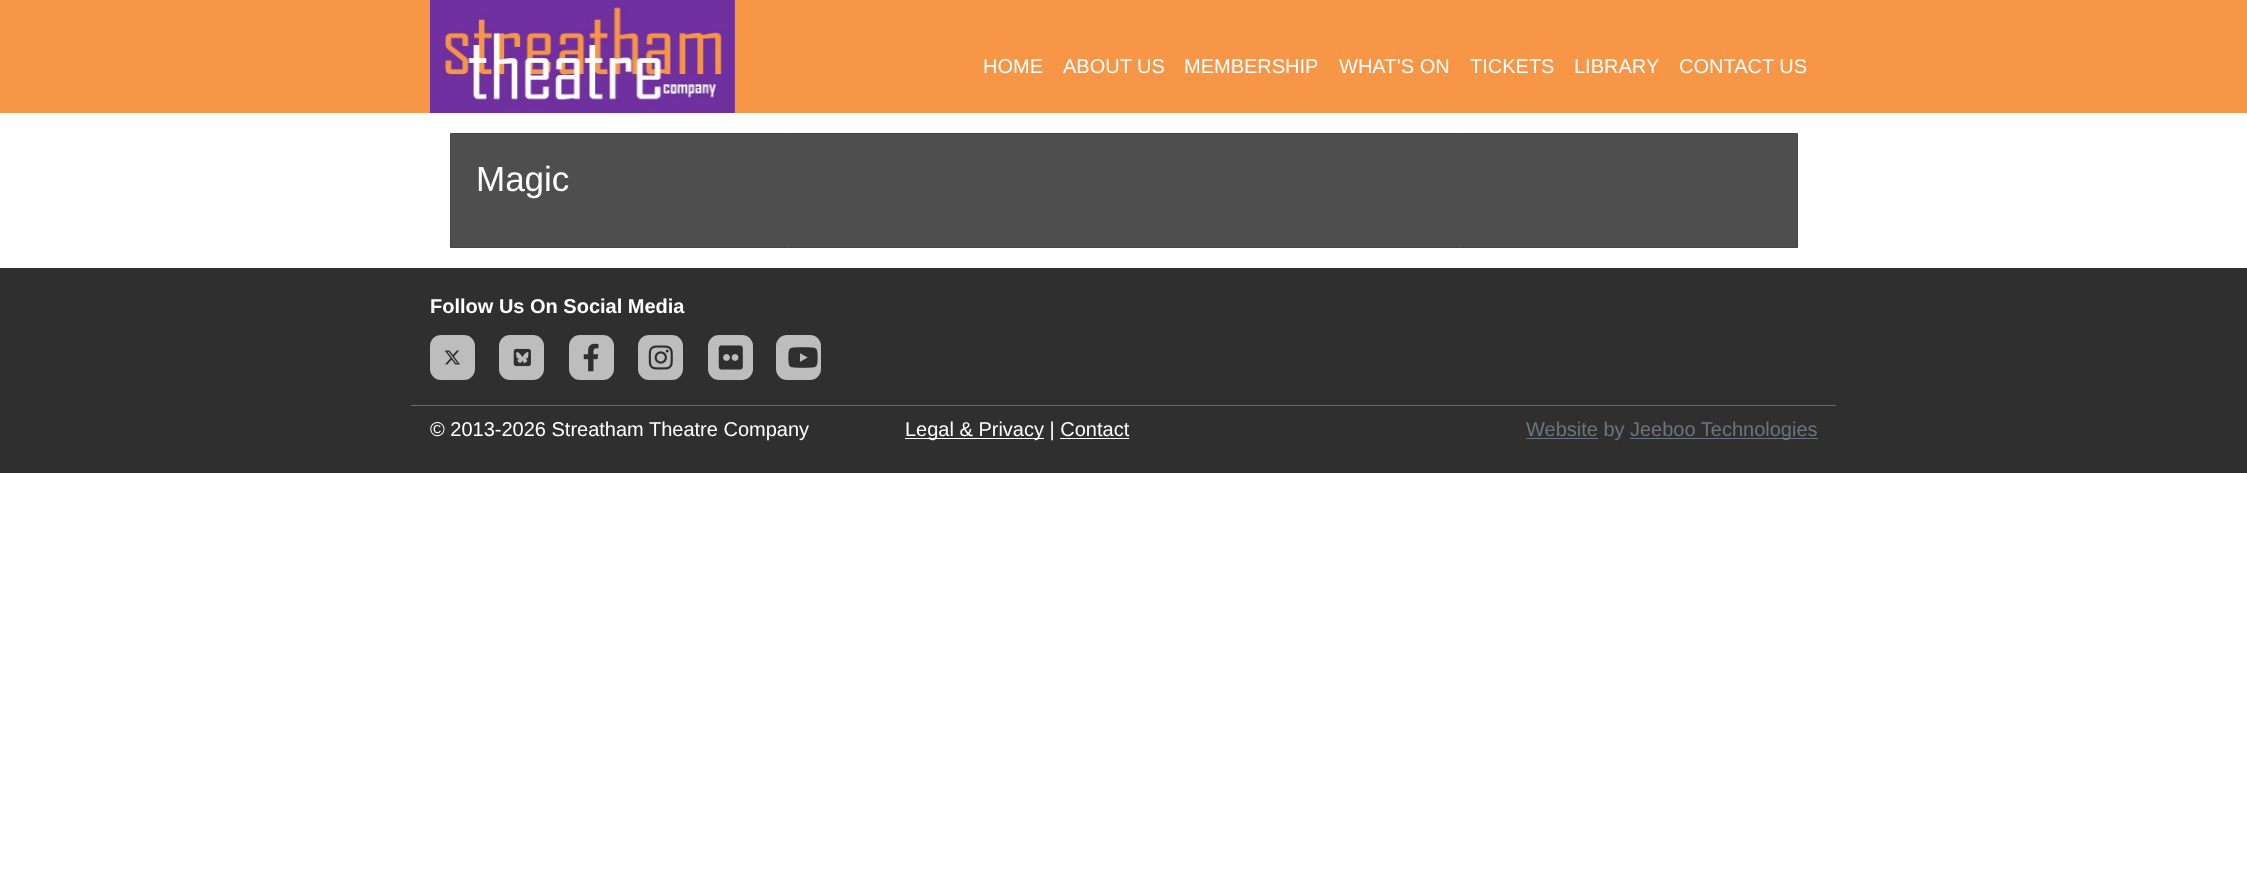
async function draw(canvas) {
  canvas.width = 2247;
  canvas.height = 896;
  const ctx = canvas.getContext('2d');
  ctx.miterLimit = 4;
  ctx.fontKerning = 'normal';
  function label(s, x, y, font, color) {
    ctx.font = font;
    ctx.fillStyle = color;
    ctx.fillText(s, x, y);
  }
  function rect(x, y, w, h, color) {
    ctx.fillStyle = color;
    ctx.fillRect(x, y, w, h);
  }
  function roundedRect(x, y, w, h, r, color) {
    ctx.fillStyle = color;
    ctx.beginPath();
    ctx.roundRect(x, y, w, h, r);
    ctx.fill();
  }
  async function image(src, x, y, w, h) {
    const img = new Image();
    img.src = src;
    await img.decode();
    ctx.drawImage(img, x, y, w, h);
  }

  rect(0, 0, 2247, 896, '#fff');
  rect(0, 0, 2247, 113, '#f79646');
  await image('assets/img1.png', 430, 0, 305, 113);
  label('HOME', 983, 73, '20px Liberation Sans', '#fff');
  label('ABOUT US', 1063, 73, '20px Liberation Sans', '#fff');
  label('MEMBERSHIP', 1184, 73, '20px Liberation Sans', '#fff');
  label('WHAT’S ON', 1339, 73, '20px Liberation Sans', '#fff');
  label('TICKETS', 1470, 73, '20px Liberation Sans', '#fff');
  label('LIBRARY', 1574, 73, '20px Liberation Sans', '#fff');
  label('CONTACT US', 1679, 73, '20px Liberation Sans', '#fff');
  ctx.fillStyle = '#4e4e4e';
  ctx.beginPath();
  ctx.rect(450.5, 133.5, 1347, 114);
  ctx.fill();
  ctx.strokeStyle = '#444';
  ctx.stroke();
  label('Magic', 476, 191, '35px Liberation Sans', '#fff');
  rect(0, 268, 2247, 205, '#2f2f2f');
  label('Follow Us On Social Media', 430, 313, 'bold 20px Liberation Sans', '#fff');
  roundedRect(430, 335, 45, 45, 11, '#bdbdbd');
  await image('assets/img2.png', 444, 350, 16, 15);
  roundedRect(499, 335, 45, 45, 11, '#bdbdbd');
  await image('assets/img3.png', 513, 348, 18, 19);
  roundedRect(569, 335, 45, 45, 11, '#bdbdbd');
  await image('assets/img4.png', 583, 343, 16, 29);
  roundedRect(638, 335, 45, 45, 11, '#bdbdbd');
  await image('assets/img5.png', 648, 345, 25, 25);
  roundedRect(708, 335, 45, 45, 11, '#bdbdbd');
  await image('assets/img6.png', 718, 345, 25, 25);
  roundedRect(776, 335, 45, 45, 11, '#bdbdbd');
  await image('assets/img7.png', 788, 347, 30, 21);
  rect(411, 405, 1425, 1, '#686868');
  label('© 2013-2026 Streatham Theatre Company', 430, 436, '20px Liberation Sans', '#fff');
  rect(905, 438, 139, 1, '#fff');
  label('Legal & Privacy | Contact', 905, 436, '20px Liberation Sans', '#fff');
  rect(1060, 438, 69, 1, '#fff');
  rect(1526, 438, 72, 1, '#6c757d');
  label('Website by', 1526, 436, '20px Liberation Sans', '#6c757d');
  rect(1630, 438, 188, 1, '#6c757d');
  label('Jeeboo Technologies', 1630, 436, '20px Liberation Sans', '#6c757d');
}

draw(document.querySelector('canvas'));
